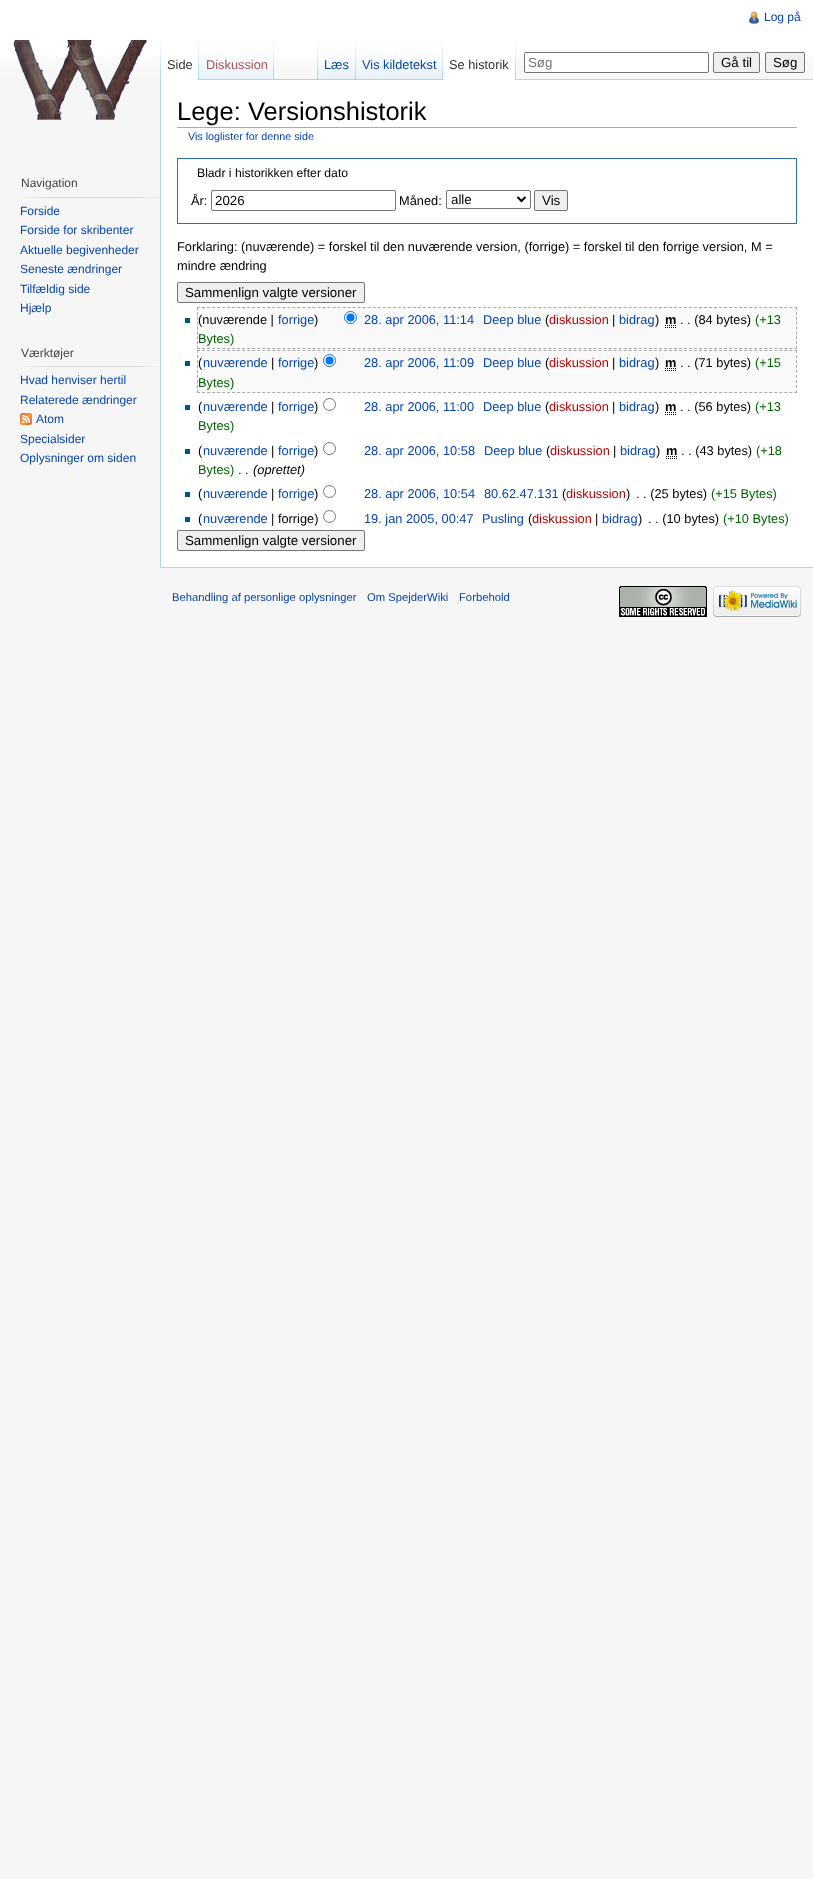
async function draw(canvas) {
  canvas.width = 813;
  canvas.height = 1879;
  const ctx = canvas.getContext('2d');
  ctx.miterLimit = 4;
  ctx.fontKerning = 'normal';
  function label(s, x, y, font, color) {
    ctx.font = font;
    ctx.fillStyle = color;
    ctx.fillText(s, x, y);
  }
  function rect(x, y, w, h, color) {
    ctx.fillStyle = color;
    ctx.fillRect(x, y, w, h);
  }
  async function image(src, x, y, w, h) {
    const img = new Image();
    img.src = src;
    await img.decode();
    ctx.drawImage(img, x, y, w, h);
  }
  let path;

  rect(0, 0, 813, 1879, '#f6f6f6');
  rect(0, 0, 813, 57, '#fff');
  await image('assets/img1.png', 0, 57, 813, 23);
  await image('assets/img2.png', 749, 11, 10, 13);
  label('Log på', 764, 21, '12px Liberation Sans', '#0645ad');
  await image('assets/img3.png', 160, 40, 1, 39);
  rect(161, 57, 37, 23, '#fff');
  await image('assets/img4.png', 198, 40, 1, 40);
  label('Side', 167, 69, '12.8px Liberation Sans', '#333');
  await image('assets/img5.png', 199, 40, 75, 40);
  await image('assets/img6.png', 273, 40, 1, 39);
  label('Diskussion', 206, 69, '12.8px Liberation Sans', '#a55858');
  await image('assets/img3.png', 317, 40, 1, 39);
  rect(274, 79, 539, 1, '#a7d7f9');
  await image('assets/img7.png', 318, 40, 38, 40);
  await image('assets/img6.png', 355, 40, 1, 39);
  label('Læs', 324, 69, '12.8px Liberation Sans', '#0645ad');
  await image('assets/img8.png', 356, 40, 87, 40);
  await image('assets/img6.png', 442, 40, 1, 39);
  label('Vis kildetekst', 362, 69, '12.8px Liberation Sans', '#0645ad');
  rect(443, 57, 72, 23, '#fff');
  await image('assets/img4.png', 515, 40, 1, 40);
  label('Se historik', 449, 69, '12.8px Liberation Sans', '#333');
  ctx.fillStyle = '#fff';
  ctx.beginPath();
  ctx.roundRect(524.5, 52.5, 184, 20, 1.5);
  ctx.fill();
  ctx.strokeStyle = '#767676';
  ctx.stroke();
  label('Søg', 528, 67, '13.3px Liberation Sans', '#757575');
  ctx.fillStyle = '#efefef';
  ctx.beginPath();
  ctx.roundRect(713.5, 52.5, 46, 20, 1.5);
  ctx.fill();
  ctx.stroke();
  label('Gå til', 721, 67, '13.3px Liberation Sans', '#000');
  ctx.fillStyle = '#efefef';
  ctx.beginPath();
  ctx.roundRect(765.5, 52.5, 39, 20, 1.5);
  ctx.fill();
  ctx.stroke();
  label('Søg', 773, 67, '13.3px Liberation Sans', '#000');
  await image('assets/img9.png', 13, 40, 134, 80);
  label('Navigation', 21, 187, '12px Liberation Sans', '#444');
  await image('assets/img10.png', 23, 197, 135, 1);
  label('Forside', 20, 215, '12px Liberation Sans', '#0645ad');
  label('Forside for skribenter', 20, 234, '12px Liberation Sans', '#0645ad');
  label('Aktuelle begivenheder', 20, 254, '12px Liberation Sans', '#0645ad');
  label('Seneste ændringer', 20, 273, '12px Liberation Sans', '#0645ad');
  label('Tilfældig side', 20, 293, '12px Liberation Sans', '#0645ad');
  label('Hjælp', 20, 312, '12px Liberation Sans', '#0645ad');
  label('Værktøjer', 21, 357, '12px Liberation Sans', '#444');
  await image('assets/img10.png', 23, 366, 135, 1);
  label('Hvad henviser hertil', 20, 384, '12px Liberation Sans', '#0645ad');
  label('Relaterede ændringer', 20, 404, '12px Liberation Sans', '#0645ad');
  await image('assets/img11.png', 20, 413, 12, 12);
  label('Atom', 36, 423, '12px Liberation Sans', '#0645ad');
  label('Specialsider', 20, 443, '12px Liberation Sans', '#0645ad');
  label('Oplysninger om siden', 20, 462, '12px Liberation Sans', '#0645ad');
  rect(161, 80, 652, 487, '#fff');
  rect(160, 567, 653, 1, '#a7d7f9');
  rect(160, 79, 1, 489, '#a7d7f9');
  rect(177, 127, 620, 1, '#aaa');
  label('Lege: Versionshistorik', 177, 120, '25.5px Liberation Sans', '#000');
  label('Vis loglister for denne side', 188, 140, '10.75px Liberation Sans', '#0645ad');
  ctx.strokeStyle = '#2f6fab';
  ctx.strokeRect(177.5, 158.5, 619, 65);
  label('Bladr i historikken efter dato', 197, 177, '12.2px Liberation Sans', '#000');
  label('År:', 191, 205, '12.8px Liberation Sans', '#000');
  ctx.beginPath();
  ctx.roundRect(211.5, 190.5, 184, 20, 1.5);
  ctx.strokeStyle = '#767676';
  ctx.stroke();
  label('2026', 215, 205, '13.3px Liberation Sans', '#000');
  label('Måned:', 399, 205, '12.8px Liberation Sans', '#000');
  ctx.beginPath();
  ctx.roundRect(446.5, 190.5, 84, 18, 1.5);
  ctx.stroke();
  path = new Path2D('M517.5 197L521.5 201L525.5 197');
  ctx.strokeStyle = '#000';
  ctx.lineWidth = 2;
  ctx.stroke(path);
  label('alle', 451, 204, '13.3px Liberation Sans', '#000');
  ctx.fillStyle = '#efefef';
  ctx.beginPath();
  ctx.roundRect(534.5, 190.5, 33, 20, 1.5);
  ctx.fill();
  ctx.strokeStyle = '#767676';
  ctx.lineWidth = 1;
  ctx.stroke();
  label('Vis', 542, 205, '13.3px Liberation Sans', '#000');
  label('Forklaring: (nuværende) = forskel til den nuværende version, (forrige) = forskel til den forrige version, M =', 177, 251, '12.8px Liberation Sans', '#000');
  label('mindre ændring', 177, 270, '12.8px Liberation Sans', '#000');
  ctx.fillStyle = '#efefef';
  ctx.beginPath();
  ctx.roundRect(177.5, 282.5, 187, 20, 1.5);
  ctx.fill();
  ctx.stroke();
  label('Sammenlign valgte versioner', 185, 297, '13.3px Liberation Sans', '#000');
  rect(197, 307, 600, 42, '#f9f9f9');
  path = new Path2D('M197 307.5H797');
  ctx.strokeStyle = '#aaa';
  ctx.setLineDash([3, 2.02]);
  ctx.stroke(path);
  path = new Path2D('M796.5 307V349');
  ctx.setLineDash([3, 1.88]);
  ctx.stroke(path);
  path = new Path2D('M197 348.5H797');
  ctx.setLineDash([3, 2.02]);
  ctx.stroke(path);
  path = new Path2D('M197.5 307V349');
  ctx.setLineDash([3, 1.88]);
  ctx.stroke(path);
  rect(185, 318, 5, 5, '#00528c');
  label('(nuværende |', 198, 324, '12.8px Liberation Sans', '#000');
  label('forrige', 278, 324, '12.8px Liberation Sans', '#0645ad');
  label(')', 314, 324, '12.8px Liberation Sans', '#000');
  ctx.fillStyle = '#fff';
  ctx.beginPath();
  ctx.arc(350.5, 317.5, 6, 0, 2 * Math.PI);
  ctx.fill();
  ctx.strokeStyle = '#0075ff';
  ctx.setLineDash([]);
  ctx.stroke();
  ctx.fillStyle = '#0075ff';
  ctx.beginPath();
  ctx.arc(350.5, 317.5, 4, 0, 2 * Math.PI);
  ctx.fill();
  label('28. apr 2006, 11:14', 364, 324, '12.8px Liberation Sans', '#0645ad');
  label('Deep blue', 483, 324, '12.8px Liberation Sans', '#0645ad');
  label('(', 545, 324, '12.8px Liberation Sans', '#000');
  label('diskussion', 549, 324, '12.8px Liberation Sans', '#ba0000');
  label('|', 612, 324, '12.8px Liberation Sans', '#000');
  label('bidrag', 619, 324, '12.8px Liberation Sans', '#0645ad');
  label(')', 655, 324, '12.8px Liberation Sans', '#000');
  label('m', 665, 324, 'bold 12.8px Liberation Sans', '#000');
  path = new Path2D('M665 327.5H676M665 325.5H676.5');
  ctx.strokeStyle = '#000';
  ctx.setLineDash([1, 1]);
  ctx.stroke(path);
  label('. . (84 bytes)', 680, 324, '12.8px Liberation Sans', '#000');
  label('(+13', 755, 324, '12.8px Liberation Sans', '#006400');
  label('Bytes)', 198, 343, '12.8px Liberation Sans', '#006400');
  rect(197, 350, 600, 43, '#f9f9f9');
  path = new Path2D('M197 350.5H797');
  ctx.strokeStyle = '#aaa';
  ctx.setLineDash([3, 2.02]);
  ctx.stroke(path);
  path = new Path2D('M796.5 350V393');
  ctx.setLineDash([3, 2]);
  ctx.stroke(path);
  path = new Path2D('M197 392.5H797');
  ctx.setLineDash([3, 2.02]);
  ctx.stroke(path);
  path = new Path2D('M197.5 350V393');
  ctx.setLineDash([3, 2]);
  ctx.stroke(path);
  rect(185, 361, 5, 5, '#00528c');
  label('(', 198, 367, '12.8px Liberation Sans', '#000');
  label('nuværende', 203, 367, '12.8px Liberation Sans', '#0645ad');
  label('|', 271, 367, '12.8px Liberation Sans', '#000');
  label('forrige', 278, 367, '12.8px Liberation Sans', '#0645ad');
  label(')', 314, 367, '12.8px Liberation Sans', '#000');
  ctx.fillStyle = '#fff';
  ctx.beginPath();
  ctx.arc(329.5, 360.5, 6, 0, 2 * Math.PI);
  ctx.fill();
  ctx.strokeStyle = '#0075ff';
  ctx.setLineDash([]);
  ctx.stroke();
  ctx.fillStyle = '#0075ff';
  ctx.beginPath();
  ctx.arc(329.5, 360.5, 4, 0, 2 * Math.PI);
  ctx.fill();
  label('28. apr 2006, 11:09', 364, 367, '12.8px Liberation Sans', '#0645ad');
  label('Deep blue', 483, 367, '12.8px Liberation Sans', '#0645ad');
  label('(', 545, 367, '12.8px Liberation Sans', '#000');
  label('diskussion', 549, 367, '12.8px Liberation Sans', '#ba0000');
  label('|', 612, 367, '12.8px Liberation Sans', '#000');
  label('bidrag', 619, 367, '12.8px Liberation Sans', '#0645ad');
  label(')', 655, 367, '12.8px Liberation Sans', '#000');
  label('m', 665, 367, 'bold 12.8px Liberation Sans', '#000');
  path = new Path2D('M665 370.5H676M665 368.5H676.5');
  ctx.strokeStyle = '#000';
  ctx.setLineDash([1, 1]);
  ctx.stroke(path);
  label('. . (71 bytes)', 680, 367, '12.8px Liberation Sans', '#000');
  label('(+15', 755, 367, '12.8px Liberation Sans', '#006400');
  label('Bytes)', 198, 387, '12.8px Liberation Sans', '#006400');
  rect(185, 405, 5, 5, '#00528c');
  label('(', 198, 411, '12.8px Liberation Sans', '#000');
  label('nuværende', 203, 411, '12.8px Liberation Sans', '#0645ad');
  label('|', 271, 411, '12.8px Liberation Sans', '#000');
  label('forrige', 278, 411, '12.8px Liberation Sans', '#0645ad');
  label(')', 314, 411, '12.8px Liberation Sans', '#000');
  ctx.beginPath();
  ctx.arc(329.5, 404.5, 6, 0, 2 * Math.PI);
  ctx.strokeStyle = '#767676';
  ctx.setLineDash([]);
  ctx.stroke();
  label('28. apr 2006, 11:00', 364, 411, '12.8px Liberation Sans', '#0645ad');
  label('Deep blue', 483, 411, '12.8px Liberation Sans', '#0645ad');
  label('(', 545, 411, '12.8px Liberation Sans', '#000');
  label('diskussion', 549, 411, '12.8px Liberation Sans', '#ba0000');
  label('|', 612, 411, '12.8px Liberation Sans', '#000');
  label('bidrag', 619, 411, '12.8px Liberation Sans', '#0645ad');
  label(')', 655, 411, '12.8px Liberation Sans', '#000');
  label('m', 665, 411, 'bold 12.8px Liberation Sans', '#000');
  path = new Path2D('M665 414.5H676M665 412.5H676.5');
  ctx.strokeStyle = '#000';
  ctx.setLineDash([1, 1]);
  ctx.stroke(path);
  label('. . (56 bytes)', 680, 411, '12.8px Liberation Sans', '#000');
  label('(+13', 755, 411, '12.8px Liberation Sans', '#006400');
  label('Bytes)', 198, 430, '12.8px Liberation Sans', '#006400');
  rect(185, 449, 5, 5, '#00528c');
  label('(', 198, 455, '12.8px Liberation Sans', '#000');
  label('nuværende', 203, 455, '12.8px Liberation Sans', '#0645ad');
  label('|', 271, 455, '12.8px Liberation Sans', '#000');
  label('forrige', 278, 455, '12.8px Liberation Sans', '#0645ad');
  label(')', 314, 455, '12.8px Liberation Sans', '#000');
  ctx.beginPath();
  ctx.arc(329.5, 448.5, 6, 0, 2 * Math.PI);
  ctx.strokeStyle = '#767676';
  ctx.setLineDash([]);
  ctx.stroke();
  label('28. apr 2006, 10:58', 364, 455, '12.8px Liberation Sans', '#0645ad');
  label('Deep blue', 484, 455, '12.8px Liberation Sans', '#0645ad');
  label('(', 546, 455, '12.8px Liberation Sans', '#000');
  label('diskussion', 550, 455, '12.8px Liberation Sans', '#ba0000');
  label('|', 613, 455, '12.8px Liberation Sans', '#000');
  label('bidrag', 620, 455, '12.8px Liberation Sans', '#0645ad');
  label(')', 656, 455, '12.8px Liberation Sans', '#000');
  label('m', 666, 455, 'bold 12.8px Liberation Sans', '#000');
  path = new Path2D('M666 458.5H677M666 456.5H677.5');
  ctx.strokeStyle = '#000';
  ctx.setLineDash([1, 1]);
  ctx.stroke(path);
  label('. . (43 bytes)', 681, 455, '12.8px Liberation Sans', '#000');
  label('(+18', 756, 455, '12.8px Liberation Sans', '#006400');
  label('Bytes)', 198, 474, '12.8px Liberation Sans', '#006400');
  label('. .', 238, 474, '12.8px Liberation Sans', '#000');
  label('(oprettet)', 253, 474, 'italic 12.8px Liberation Sans', '#000');
  rect(185, 492, 5, 5, '#00528c');
  label('(', 198, 498, '12.8px Liberation Sans', '#000');
  label('nuværende', 203, 498, '12.8px Liberation Sans', '#0645ad');
  label('|', 271, 498, '12.8px Liberation Sans', '#000');
  label('forrige', 278, 498, '12.8px Liberation Sans', '#0645ad');
  label(')', 314, 498, '12.8px Liberation Sans', '#000');
  ctx.beginPath();
  ctx.arc(329.5, 491.5, 6, 0, 2 * Math.PI);
  ctx.strokeStyle = '#767676';
  ctx.setLineDash([]);
  ctx.stroke();
  label('28. apr 2006, 10:54', 364, 498, '12.8px Liberation Sans', '#0645ad');
  label('80.62.47.131', 484, 498, '12.8px Liberation Sans', '#0645ad');
  label('(', 562, 498, '12.8px Liberation Sans', '#000');
  label('diskussion', 566, 498, '12.8px Liberation Sans', '#ba0000');
  label(')', 626, 498, '12.8px Liberation Sans', '#000');
  label('. . (25 bytes)', 636, 498, '12.8px Liberation Sans', '#000');
  label('(+15 Bytes)', 711, 498, '12.8px Liberation Sans', '#006400');
  rect(185, 517, 5, 5, '#00528c');
  label('(', 198, 523, '12.8px Liberation Sans', '#000');
  label('nuværende', 203, 523, '12.8px Liberation Sans', '#0645ad');
  label('| forrige)', 271, 523, '12.8px Liberation Sans', '#000');
  ctx.beginPath();
  ctx.arc(329.5, 516.5, 6, 0, 2 * Math.PI);
  ctx.stroke();
  label('19. jan 2005, 00:47', 364, 523, '12.8px Liberation Sans', '#0645ad');
  label('Pusling', 482, 523, '12.8px Liberation Sans', '#0645ad');
  label('(', 528, 523, '12.8px Liberation Sans', '#000');
  label('diskussion', 532, 523, '12.8px Liberation Sans', '#ba0000');
  label('|', 595, 523, '12.8px Liberation Sans', '#000');
  label('bidrag', 602, 523, '12.8px Liberation Sans', '#0645ad');
  label(')', 638, 523, '12.8px Liberation Sans', '#000');
  label('. . (10 bytes)', 648, 523, '12.8px Liberation Sans', '#000');
  label('(+10 Bytes)', 723, 523, '12.8px Liberation Sans', '#006400');
  ctx.fillStyle = '#efefef';
  ctx.beginPath();
  ctx.roundRect(177.5, 530.5, 187, 20, 1.5);
  ctx.fill();
  ctx.stroke();
  label('Sammenlign valgte versioner', 185, 545, '13.3px Liberation Sans', '#000');
  label('Behandling af personlige oplysninger', 172, 601, '11.25px Liberation Sans', '#0645ad');
  label('Om SpejderWiki', 367, 601, '11.25px Liberation Sans', '#0645ad');
  label('Forbehold', 459, 601, '11.25px Liberation Sans', '#0645ad');
  await image('assets/img12.png', 619, 586, 88, 31);
  await image('assets/img13.png', 713, 586, 88, 31);
}

draw(document.querySelector('canvas'));
